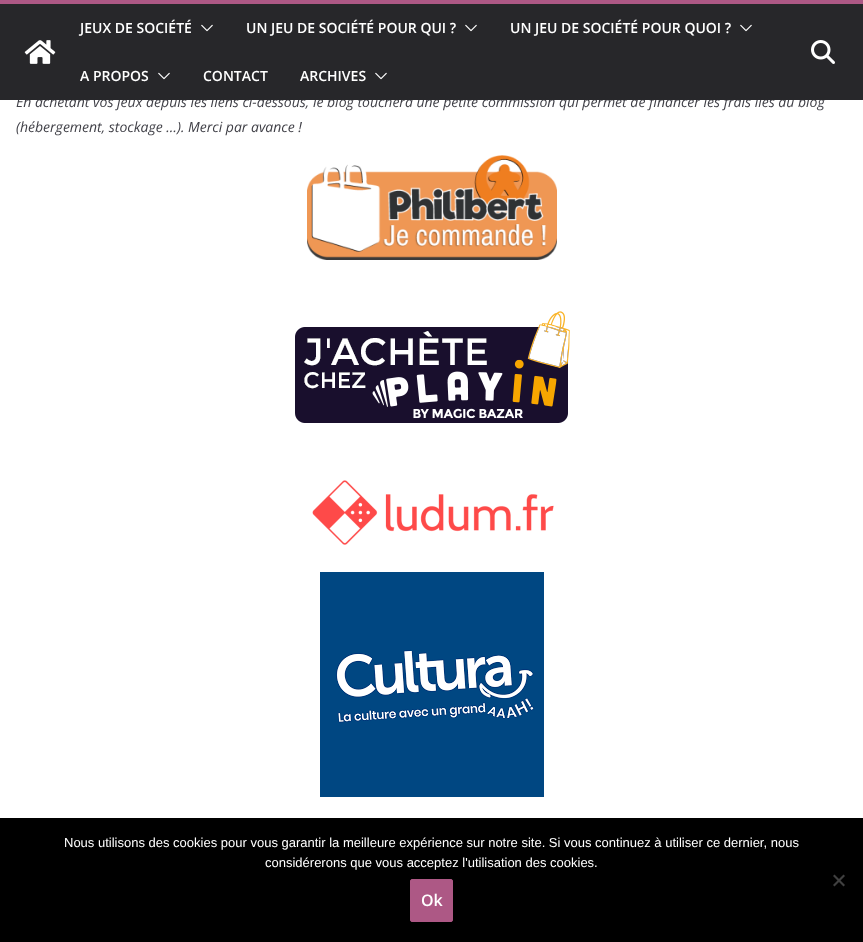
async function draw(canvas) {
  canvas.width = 863;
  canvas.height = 942;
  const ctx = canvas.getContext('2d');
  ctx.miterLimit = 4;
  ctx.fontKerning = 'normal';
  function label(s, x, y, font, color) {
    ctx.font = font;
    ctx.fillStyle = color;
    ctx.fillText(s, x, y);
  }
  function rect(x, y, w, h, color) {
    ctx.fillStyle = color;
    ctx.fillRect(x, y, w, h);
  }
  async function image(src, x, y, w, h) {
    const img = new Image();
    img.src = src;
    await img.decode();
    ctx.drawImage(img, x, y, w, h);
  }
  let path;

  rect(0, 0, 863, 942, '#fff');
  label('En achetant vos jeux depuis les liens ci-dessous, le blog touchera une petite commission qui permet de financer les frais liés au blog', 16, 107, 'italic 14px Open Sans', '#3f3f46');
  rect(0, 4, 863, 96, '#27272a');
  rect(0, 0, 863, 4, '#ad5885');
  await image('assets/img1.png', 24, 40, 32, 24);
  label('JEUX DE SOCIÉTÉ', 80, 33, '600 14px Open Sans', '#fff');
  await image('assets/img2.png', 201, 24, 12, 8);
  label('UN JEU DE SOCIÉTÉ POUR QUI ?', 246, 33, '600 14px Open Sans', '#fff');
  await image('assets/img2.png', 465, 24, 12, 8);
  label('UN JEU DE SOCIÉTÉ POUR QUOI ?', 510, 33, '600 14px Open Sans', '#fff');
  await image('assets/img2.png', 740, 24, 12, 8);
  label('A PROPOS', 80, 81, '600 14px Open Sans', '#fff');
  await image('assets/img2.png', 158, 72, 12, 8);
  label('CONTACT', 203, 81, '600 14px Open Sans', '#fff');
  label('ARCHIVES', 300, 81, '600 14px Open Sans', '#fff');
  await image('assets/img2.png', 375, 72, 12, 8);
  await image('assets/img3.png', 811, 40, 24, 24);
  label('(hébergement, stockage …). Merci par avance !', 16, 132, 'italic 14px Open Sans', '#3f3f46');
  await image('assets/img4.png', 307, 155, 250, 105);
  await image('assets/img5.png', 295, 311, 275, 112);
  await image('assets/img6.png', 312, 480, 242, 65);
  await image('assets/img7.png', 320, 572, 224, 225);
  rect(0, 818, 863, 124, '#000');
  label('Nous utilisons des cookies pour vous garantir la meilleure expérience sur notre site. Si vous continuez à utiliser ce dernier, nous', 64, 847, '13px Liberation Sans', '#fff');
  label('considérerons que vous acceptez l\'utilisation des cookies.', 265, 867, '13px Liberation Sans', '#fff');
  ctx.fillStyle = '#404040';
  path = new Path2D('M843.5 874.5L845 876L834.5 886.5L833 885Z');
  ctx.fill(path);
  path = new Path2D('M833 876L834.5 874.5L845 885L843.5 886.5Z');
  ctx.fill(path);
  ctx.fillStyle = '#ad5885';
  ctx.beginPath();
  ctx.roundRect(410.5, 879.5, 42, 42, 1.5);
  ctx.fill();
  ctx.strokeStyle = '#ad5885';
  ctx.stroke();
  label('Ok', 421, 906, '600 16px Open Sans', '#fff');
}

draw(document.querySelector('canvas'));
